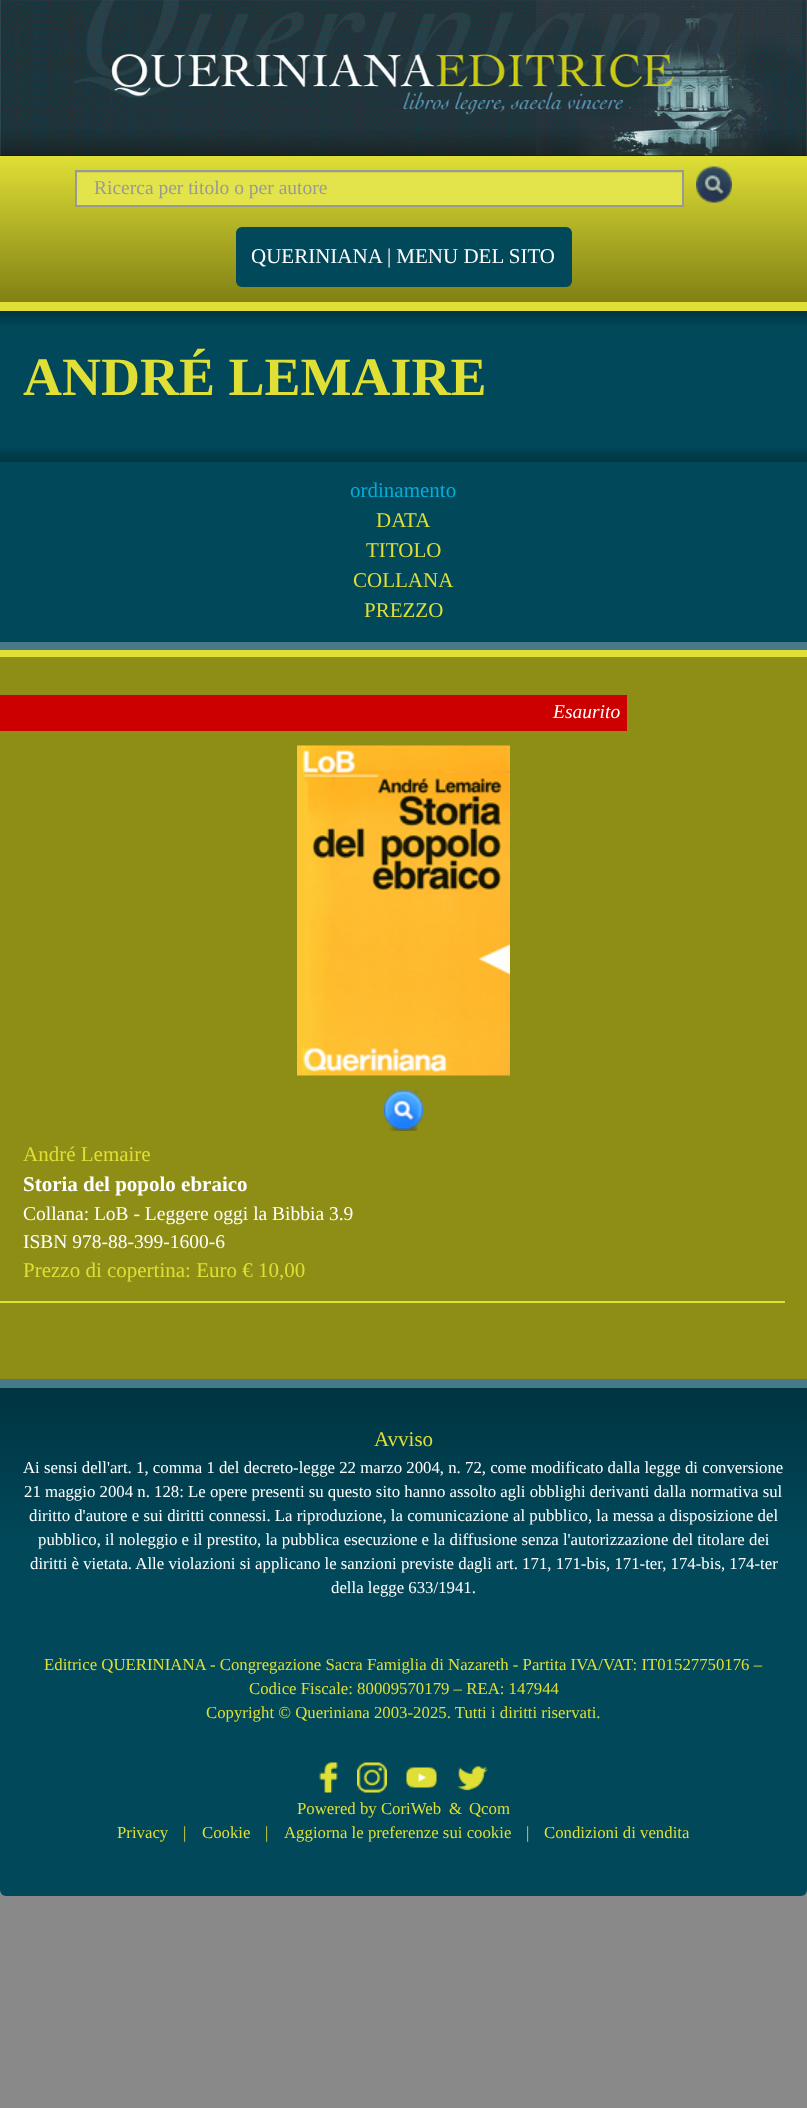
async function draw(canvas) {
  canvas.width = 807;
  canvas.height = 2108;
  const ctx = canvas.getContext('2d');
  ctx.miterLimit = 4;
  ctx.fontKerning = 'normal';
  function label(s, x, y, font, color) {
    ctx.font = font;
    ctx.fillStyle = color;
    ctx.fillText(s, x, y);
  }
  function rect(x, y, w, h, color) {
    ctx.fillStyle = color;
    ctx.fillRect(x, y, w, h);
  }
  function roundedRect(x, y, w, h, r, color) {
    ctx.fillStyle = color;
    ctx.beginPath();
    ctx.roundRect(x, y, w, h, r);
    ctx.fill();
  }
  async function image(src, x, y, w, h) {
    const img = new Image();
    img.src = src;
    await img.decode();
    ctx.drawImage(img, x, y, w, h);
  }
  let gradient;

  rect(0, 0, 807, 2108, '#898989');
  await image('assets/img1.png', 0, 0, 807, 156);
  gradient = ctx.createLinearGradient(404, 156, 404, 302);
  gradient.addColorStop(0, '#dfdf36');
  gradient.addColorStop(1, '#818115');
  ctx.fillStyle = gradient;
  ctx.fillRect(0, 156, 807, 146);
  rect(0, 302, 807, 9, '#dfdf36');
  rect(77, 173, 605, 32, '#e3e34c');
  rect(77, 172, 606, 1, '#d2d246');
  ctx.strokeStyle = '#999';
  ctx.lineWidth = 2;
  ctx.strokeRect(76, 171, 607, 35);
  label('Ricerca per titolo o per autore', 94, 194, '19.5px Liberation Serif', '#999');
  await image('assets/img2.png', 696, 166, 36, 37);
  roundedRect(236, 227, 336, 60, 6, '#00485a');
  label('QUERINIANA | MENU DEL SITO', 251, 263, '21px Liberation Serif', '#fff');
  gradient = ctx.createLinearGradient(404, 462, 404, 311);
  gradient.addColorStop(0, '#003441');
  gradient.addColorStop(0.1, '#00485a');
  gradient.addColorStop(0.9, '#00485a');
  gradient.addColorStop(1, '#003441');
  ctx.fillStyle = gradient;
  ctx.fillRect(0, 311, 807, 151);
  label('ANDRÉ LEMAIRE', 23, 395, 'bold 54px Liberation Serif', '#dfdf36');
  rect(0, 657, 807, 722, '#8e8e17');
  rect(0, 462, 807, 180, '#00485a');
  rect(0, 642, 807, 8, '#467a88');
  label('ordinamento', 350, 497, '21px Liberation Serif', '#00aeda');
  label('DATA', 376, 527, '21px Liberation Serif', '#dfdf36');
  label('TITOLO', 366, 557, '21px Liberation Serif', '#dfdf36');
  label('COLLANA', 353, 587, '21px Liberation Serif', '#dfdf36');
  label('PREZZO', 364, 617, '21px Liberation Serif', '#dfdf36');
  rect(0, 650, 807, 7, '#dfdf36');
  rect(0, 695, 627, 36, '#c00');
  label('Esaurito', 553, 718, 'italic 19.5px Liberation Serif', '#fff');
  await image('assets/img3.png', 297, 745, 213, 331);
  await image('assets/img4.png', 384, 1090, 39, 41);
  label('André Lemaire', 23, 1161, '21px Liberation Serif', '#dfdf36');
  label('Storia del popolo ebraico', 23, 1191, 'bold 21px Liberation Serif', '#fff');
  label('Collana: LoB - Leggere oggi la Bibbia 3.9', 23, 1220, '19.5px Liberation Serif', '#fff');
  label('ISBN 978-88-399-1600-6', 23, 1248, '19.5px Liberation Serif', '#fff');
  label('Prezzo di copertina: Euro € 10,00', 23, 1277, '21px Liberation Serif', '#dfdf36');
  rect(0, 1301, 785, 2, '#dfdf36');
  gradient = ctx.createLinearGradient(404, 1896, 404, 1388);
  gradient.addColorStop(0.7, '#00485a');
  gradient.addColorStop(1, '#003441');
  ctx.fillStyle = gradient;
  ctx.beginPath();
  ctx.roundRect(0, 1388, 807, 508, [0, 0, 6, 6]);
  ctx.fill();
  rect(0, 1379, 807, 9, '#467a88');
  label('Avviso', 374, 1446, '21px Liberation Serif', '#dfdf36');
  label('Ai sensi dell\'art. 1, comma 1 del decreto-legge 22 marzo 2004, n. 72, come modificato dalla legge di conversione', 23, 1473, '16.8px Liberation Serif', '#fff');
  label('21 maggio 2004 n. 128: Le opere presenti su questo sito hanno assolto agli obblighi derivanti dalla normativa sul', 24, 1497, '16.8px Liberation Serif', '#fff');
  label('diritto d\'autore e sui diritti connessi. La riproduzione, la comunicazione al pubblico, la messa a disposizione del', 29, 1521, '16.8px Liberation Serif', '#fff');
  label('pubblico, il noleggio e il prestito, la pubblica esecuzione e la diffusione senza l\'autorizzazione del titolare dei', 38, 1545, '16.8px Liberation Serif', '#fff');
  label('diritti è vietata. Alle violazioni si applicano le sanzioni previste dagli art. 171, 171-bis, 171-ter, 174-bis, 174-ter', 30, 1569, '16.8px Liberation Serif', '#fff');
  label('della legge 633/1941.', 331, 1593, '16.8px Liberation Serif', '#fff');
  label('Editrice QUERINIANA - Congregazione Sacra Famiglia di Nazareth - Partita IVA/VAT: IT01527750176 –', 44, 1670, '16.8px Liberation Serif', '#dfdf36');
  label('Codice Fiscale: 80009570179 – REA: 147944', 249, 1694, '16.8px Liberation Serif', '#dfdf36');
  label('Copyright © Queriniana 2003-2025. Tutti i diritti riservati.', 206, 1718, '16.8px Liberation Serif', '#dfdf36');
  await image('assets/img5.png', 319, 1762, 19, 31);
  await image('assets/img6.png', 357, 1762, 30, 31);
  await image('assets/img7.png', 406, 1767, 31, 21);
  await image('assets/img8.png', 457, 1766, 31, 25);
  label('Powered by CoriWeb', 297, 1814, '16.8px Liberation Serif', '#dfdf36');
  label('&', 449, 1814, '16.8px Liberation Serif', '#dfdf36');
  label('Qcom', 469, 1814, '16.8px Liberation Serif', '#dfdf36');
  label('Privacy', 117, 1838, '16.8px Liberation Serif', '#dfdf36');
  label('|', 183, 1838, '16.8px Liberation Serif', '#dfdf36');
  label('Cookie', 202, 1838, '16.8px Liberation Serif', '#dfdf36');
  label('|', 265, 1838, '16.8px Liberation Serif', '#dfdf36');
  label('Aggiorna le preferenze sui cookie', 284, 1838, '16.8px Liberation Serif', '#dfdf36');
  label('|', 526, 1838, '16.8px Liberation Serif', '#dfdf36');
  label('Condizioni di vendita', 544, 1838, '16.8px Liberation Serif', '#dfdf36');
}

draw(document.querySelector('canvas'));
